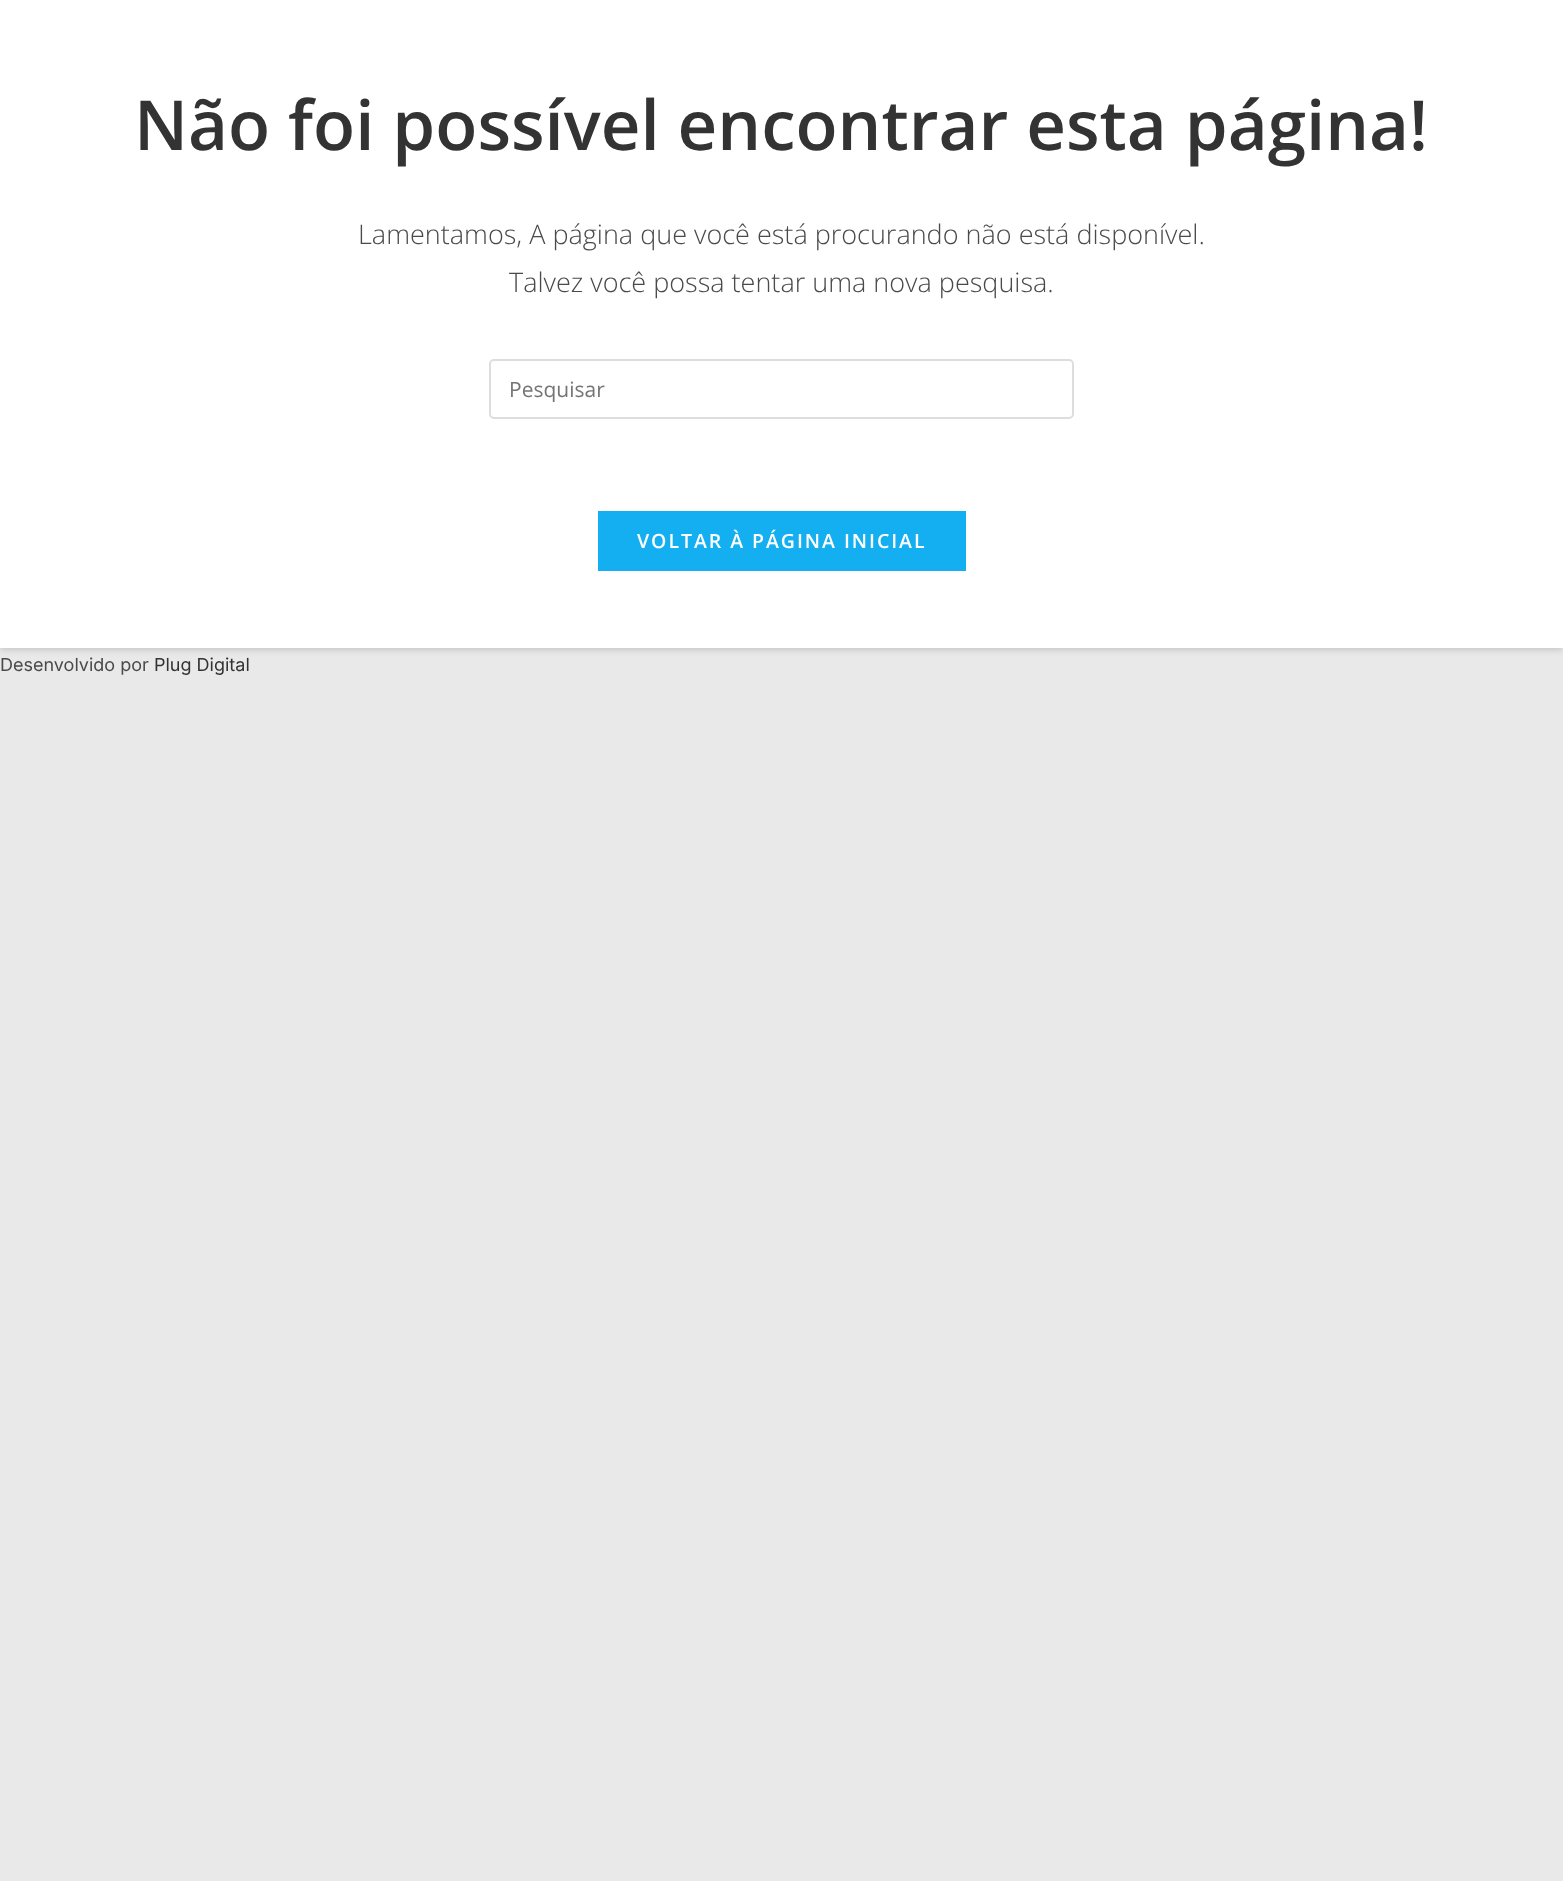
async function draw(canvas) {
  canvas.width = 1563;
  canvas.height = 1881;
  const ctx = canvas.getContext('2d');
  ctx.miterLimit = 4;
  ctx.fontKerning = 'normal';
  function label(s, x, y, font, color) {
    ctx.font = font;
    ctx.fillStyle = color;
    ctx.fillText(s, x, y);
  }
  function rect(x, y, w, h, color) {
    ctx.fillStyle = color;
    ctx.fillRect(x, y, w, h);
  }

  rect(0, 0, 1563, 1881, '#e9e9e9');
  ctx.fillStyle = '#00000026';
  ctx.filter = 'blur(3px)';
  ctx.beginPath();
  ctx.rect(0, 2, 1563, 648);
  ctx.fill();
  ctx.filter = 'none';
  rect(0, 0, 1563, 648, '#fff');
  label('Não foi possível encontrar esta página!', 134, 150, '600 69px Open Sans', '#333');
  label('Lamentamos, A página que você está procurando não está disponível.', 358, 244, '300 27px Open Sans', '#4a4a4a');
  label('Talvez você possa tentar uma nova pesquisa.', 509, 292, '300 27px Open Sans', '#4a4a4a');
  ctx.beginPath();
  ctx.roundRect(490, 360, 583, 58, 4);
  ctx.strokeStyle = '#ddd';
  ctx.lineWidth = 2;
  ctx.stroke();
  label('Pesquisar', 509, 397, '21px Open Sans', '#757575');
  rect(598, 511, 368, 60, '#13aff0');
  ctx.letterSpacing = '1.95px';
  label('VOLTAR À PÁGINA INICIAL', 637, 548, '600 19.5px Open Sans', '#fff');
  ctx.letterSpacing = '0px';
  label('Desenvolvido por', 0, 671, '18px Inter', '#4a4a4a');
  label('Plug Digital', 154, 671, '18px Inter', '#333');
}

draw(document.querySelector('canvas'));
